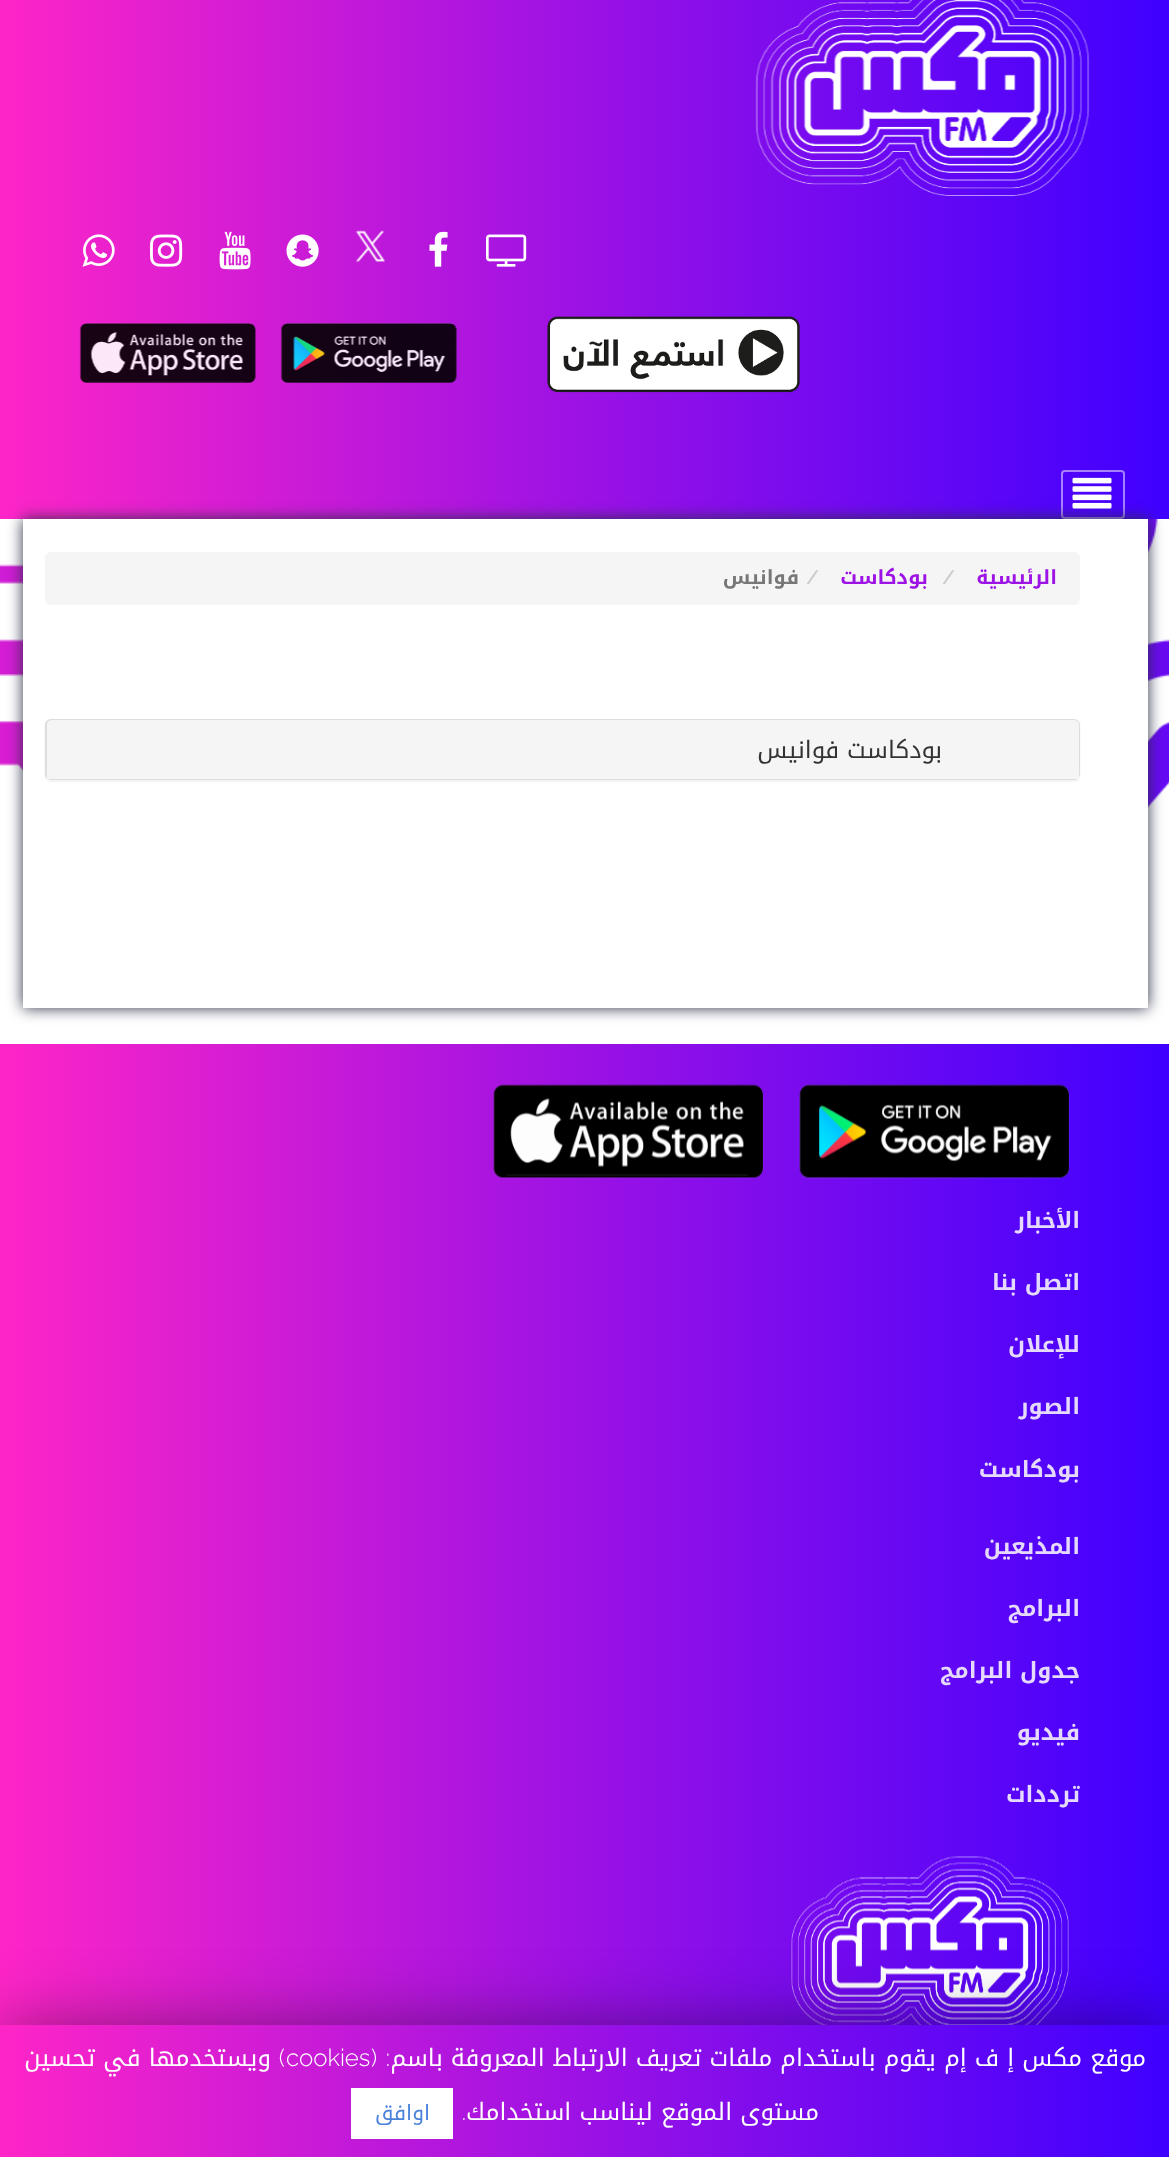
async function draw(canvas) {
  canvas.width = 1169;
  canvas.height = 2157;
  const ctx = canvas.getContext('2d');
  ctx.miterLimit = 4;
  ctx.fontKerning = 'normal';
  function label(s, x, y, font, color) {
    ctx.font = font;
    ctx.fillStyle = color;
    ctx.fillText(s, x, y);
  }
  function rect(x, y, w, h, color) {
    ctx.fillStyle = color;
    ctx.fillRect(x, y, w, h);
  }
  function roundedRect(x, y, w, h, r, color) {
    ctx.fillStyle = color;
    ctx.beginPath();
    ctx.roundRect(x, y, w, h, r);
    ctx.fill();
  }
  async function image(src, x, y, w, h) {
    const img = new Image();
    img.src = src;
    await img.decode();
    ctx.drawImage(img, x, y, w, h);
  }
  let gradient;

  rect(0, 0, 1169, 2157, '#fff');
  await image('assets/img1.png', 0, 519, 1169, 290);
  gradient = ctx.createLinearGradient(0, 235, 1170, 235);
  gradient.addColorStop(0, '#fe25c7');
  gradient.addColorStop(0.49, '#9d12e4');
  gradient.addColorStop(1, '#3f00ff');
  ctx.fillStyle = gradient;
  ctx.fillRect(0, 0, 1169, 519);
  await image('assets/img2.png', 755, 0, 335, 196);
  await image('assets/img3.png', 486, 234, 41, 33);
  await image('assets/img4.png', 429, 231, 19, 36);
  await image('assets/img5.png', 356, 230, 29, 32);
  await image('assets/img6.png', 286, 234, 33, 33);
  await image('assets/img7.png', 219, 231, 32, 39);
  await image('assets/img8.png', 150, 234, 33, 33);
  await image('assets/img9.png', 82, 234, 33, 33);
  await image('assets/img10.png', 547, 316, 253, 77);
  await image('assets/img11.png', 280, 323, 177, 60);
  await image('assets/img12.png', 79, 323, 177, 60);
  ctx.beginPath();
  ctx.roundRect(1062, 471, 62, 47, 3);
  ctx.strokeStyle = '#ffffff80';
  ctx.lineWidth = 2;
  ctx.stroke();
  ctx.fillStyle = '#2b2f45';
  ctx.filter = 'blur(7.5px)';
  ctx.beginPath();
  ctx.rect(23, 519, 1125, 489);
  ctx.fill();
  ctx.filter = 'none';
  await image('assets/img13.png', 1072, 477, 40, 32);
  rect(23, 519, 1125, 489, '#fff');
  roundedRect(45, 552, 1035, 53, 6, '#f5f5f5');
  ctx.direction = 'rtl';
  label('الرئيسية', 1057, 584, 'bold 19.5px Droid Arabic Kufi', '#9d12e4');
  ctx.direction = 'ltr';
  label('/', 942, 584, '600 19.5px Raleway', '#ccc');
  ctx.direction = 'rtl';
  label('بودكاست', 928, 584, 'bold 19.5px Droid Arabic Kufi', '#9d12e4');
  ctx.direction = 'ltr';
  label('/', 806, 584, '600 19.5px Raleway', '#ccc');
  ctx.direction = 'rtl';
  label('فوانيس', 799, 584, 'bold 19.5px Droid Arabic Kufi', '#777');
  ctx.fillStyle = '#0000000d';
  ctx.filter = 'blur(1px)';
  ctx.beginPath();
  ctx.roundRect(45, 720, 1035, 62, 6);
  ctx.fill();
  ctx.filter = 'none';
  ctx.beginPath();
  ctx.roundRect(46, 720, 1033, 59, 5);
  ctx.strokeStyle = '#ddd';
  ctx.stroke();
  ctx.fillStyle = '#f5f5f5';
  ctx.beginPath();
  ctx.roundRect(47, 720, 1032, 59, [5, 5, 0, 0]);
  ctx.fill();
  label('بودكاست فوانيس', 942, 758, '24px Droid Arabic Kufi', '#333');
  gradient = ctx.createLinearGradient(0, 1658, 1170, 1658);
  gradient.addColorStop(0, '#fe25c7');
  gradient.addColorStop(0.49, '#9d12e4');
  gradient.addColorStop(1, '#3f00ff');
  ctx.fillStyle = gradient;
  ctx.fillRect(0, 1044, 1169, 981);
  await image('assets/img14.png', 799, 1084, 271, 95);
  await image('assets/img15.png', 493, 1084, 271, 95);
  label('الأخبار', 1080, 1228, 'bold 22.5px Droid Arabic Kufi', '#e5d9fe');
  label('اتصل بنا', 1080, 1290, 'bold 22.5px Droid Arabic Kufi', '#e5d9fe');
  label('للإعلان', 1080, 1352, 'bold 22.5px Droid Arabic Kufi', '#e5d9fe');
  label('الصور', 1080, 1414, 'bold 22.5px Droid Arabic Kufi', '#e5d9fe');
  label('بودكاست', 1080, 1477, 'bold 22.5px Droid Arabic Kufi', '#e5d9fe');
  label('المذيعين', 1080, 1554, 'bold 22.5px Droid Arabic Kufi', '#e5d9fe');
  label('البرامج', 1080, 1616, 'bold 22.5px Droid Arabic Kufi', '#e5d9fe');
  label('جدول البرامج', 1080, 1678, 'bold 22.5px Droid Arabic Kufi', '#e5d9fe');
  label('فيديو', 1080, 1740, 'bold 22.5px Droid Arabic Kufi', '#e5d9fe');
  label('ترددات', 1080, 1802, 'bold 22.5px Droid Arabic Kufi', '#e5d9fe');
  await image('assets/img16.png', 791, 1856, 278, 169);
  ctx.fillStyle = '#00000080';
  ctx.filter = 'blur(37.5px)';
  ctx.beginPath();
  ctx.rect(0, 2033, 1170, 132);
  ctx.fill();
  ctx.filter = 'none';
  gradient = ctx.createLinearGradient(0, 2091, 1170, 2091);
  gradient.addColorStop(0, '#fe25c7');
  gradient.addColorStop(0.49, '#9d12e4');
  gradient.addColorStop(1, '#3f00ff');
  ctx.fillStyle = gradient;
  ctx.fillRect(0, 2025, 1169, 132);
  label('موقع مكس إ ف إم يقوم باستخدام ملفات تعريف الارتباط المعروفة باسم', 1146, 2066, '24px Droid Arabic Kufi', '#fff');
  label(':', 390, 2066, '300 24px Raleway', '#fff');
  label('(', 377, 2066, '300 24px Raleway', '#fff');
  ctx.direction = 'ltr';
  label('cookies', 286, 2066, '300 24px Raleway', '#fff');
  ctx.direction = 'rtl';
  label(')', 285, 2066, '300 24px Raleway', '#fff');
  label('ويستخدمها في تحسين', 271, 2066, '24px Droid Arabic Kufi', '#fff');
  label('مستوى الموقع ليناسب استخدامك', 819, 2120, '24px Droid Arabic Kufi', '#fff');
  label('.', 466, 2120, '300 24px Raleway', '#fff');
  rect(351, 2088, 102, 51, '#fff');
  label('اوافق', 430, 2120, '21px Droid Arabic Kufi', '#4a82db');
}

draw(document.querySelector('canvas'));
